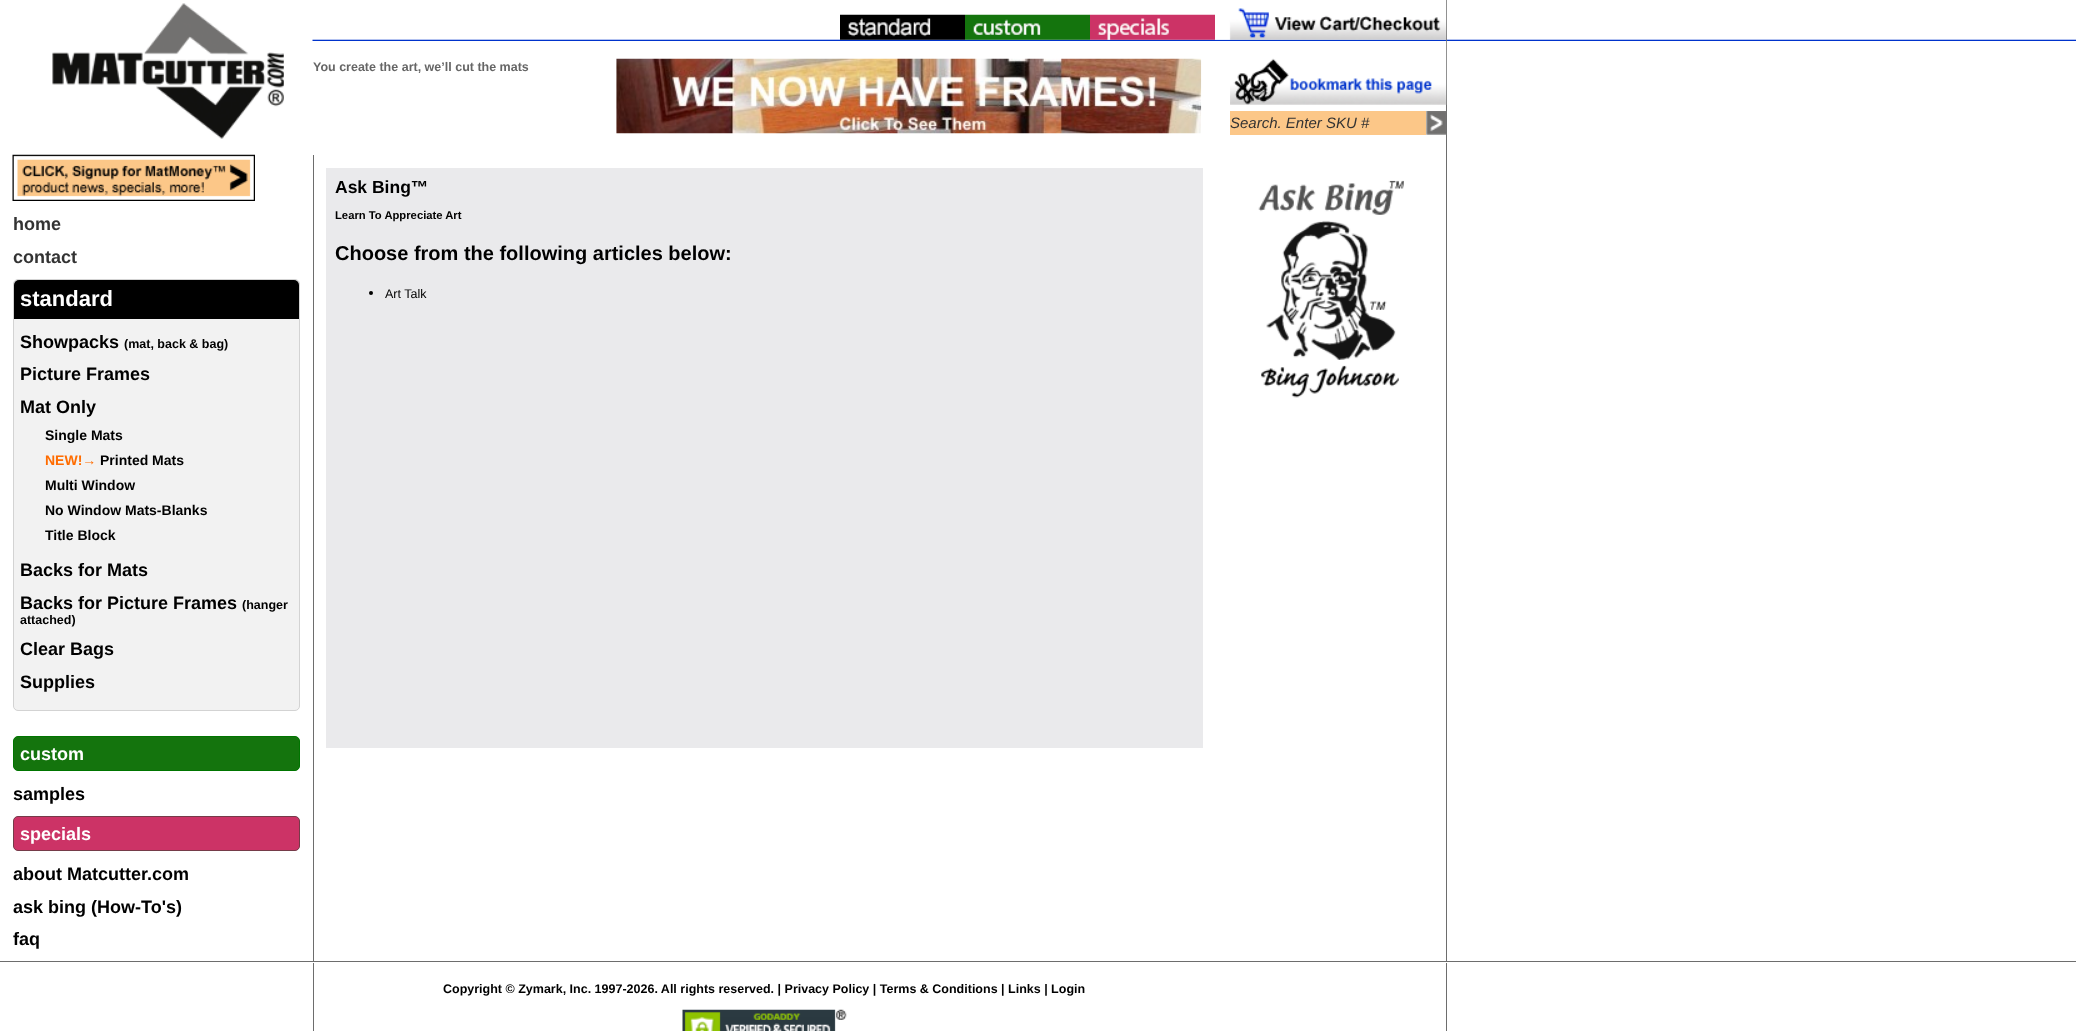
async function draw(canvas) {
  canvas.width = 2076;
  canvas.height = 1031;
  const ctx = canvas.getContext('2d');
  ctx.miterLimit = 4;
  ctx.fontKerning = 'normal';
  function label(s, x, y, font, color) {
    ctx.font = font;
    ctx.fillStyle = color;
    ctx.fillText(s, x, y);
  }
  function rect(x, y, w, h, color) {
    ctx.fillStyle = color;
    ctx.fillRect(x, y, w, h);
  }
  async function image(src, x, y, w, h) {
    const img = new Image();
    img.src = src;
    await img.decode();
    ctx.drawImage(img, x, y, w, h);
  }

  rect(0, 0, 2076, 1031, '#fff');
  await image('assets/img1.png', 312, 39, 1764, 2);
  await image('assets/img2.png', 616, 58, 586, 76);
  rect(1446, 0, 1, 961, '#6d6d6d');
  await image('assets/img3.png', 0, 3, 313, 136);
  await image('assets/img4.png', 840, 14, 125, 26);
  await image('assets/img5.png', 965, 14, 125, 26);
  await image('assets/img6.png', 1090, 14, 125, 26);
  await image('assets/img7.png', 1215, 0, 232, 40);
  label('You create the art, we’ll cut the mats', 313, 71, 'bold 12.5px Liberation Sans', '#666');
  await image('assets/img8.png', 1230, 41, 217, 64);
  rect(1230, 111, 196, 24, '#fcc788');
  label('Search. Enter SKU #', 1230, 128, 'italic 15px Liberation Sans', '#333');
  await image('assets/img9.png', 1426, 111, 21, 24);
  rect(313, 155, 1, 806, '#6d6d6d');
  await image('assets/img10.png', 12, 154, 243, 47);
  label('home', 13, 230, 'bold 18px Liberation Sans', '#333');
  label('contact', 13, 263, 'bold 18px Liberation Sans', '#333');
  ctx.fillStyle = '#f2f2f2';
  ctx.beginPath();
  ctx.roundRect(13.5, 279.5, 286, 431, 4.5);
  ctx.fill();
  ctx.strokeStyle = '#d3d3d3';
  ctx.stroke();
  ctx.fillStyle = '#000';
  ctx.beginPath();
  ctx.roundRect(14, 280, 285, 39, [5, 5, 0, 0]);
  ctx.fill();
  label('standard', 20, 306, 'bold 22px Liberation Sans', '#fff');
  label('Showpacks', 20, 348, 'bold 18px Liberation Sans', '#000');
  label('(mat, back & bag)', 124, 348, 'bold 12.5px Liberation Sans', '#000');
  label('Picture Frames', 20, 380, 'bold 18px Liberation Sans', '#000');
  label('Mat Only', 20, 413, 'bold 18px Liberation Sans', '#000');
  label('Single Mats', 45, 440, 'bold 14px Liberation Sans', '#000');
  label('NEW!→', 45, 465, 'bold 14px Liberation Sans', '#ff6c00');
  label('Printed Mats', 100, 465, 'bold 14px Liberation Sans', '#000');
  label('Multi Window', 45, 490, 'bold 14px Liberation Sans', '#000');
  label('No Window Mats-Blanks', 45, 515, 'bold 14px Liberation Sans', '#000');
  label('Title Block', 45, 540, 'bold 14px Liberation Sans', '#000');
  label('Backs for Mats', 20, 576, 'bold 18px Liberation Sans', '#000');
  label('Backs for Picture Frames', 20, 609, 'bold 18px Liberation Sans', '#000');
  label('(hanger', 242, 609, 'bold 12.5px Liberation Sans', '#000');
  label('attached)', 20, 624, 'bold 12.5px Liberation Sans', '#000');
  label('Clear Bags', 20, 655, 'bold 18px Liberation Sans', '#000');
  label('Supplies', 20, 688, 'bold 18px Liberation Sans', '#000');
  ctx.fillStyle = '#14740d';
  ctx.beginPath();
  ctx.roundRect(13.5, 736.5, 286, 34, 4.5);
  ctx.fill();
  ctx.strokeStyle = '#007500';
  ctx.stroke();
  label('custom', 20, 760, 'bold 18px Liberation Sans', '#fff');
  label('samples', 13, 800, 'bold 18px Liberation Sans', '#000');
  ctx.fillStyle = '#c36';
  ctx.beginPath();
  ctx.roundRect(13.5, 816.5, 286, 34, 4.5);
  ctx.fill();
  ctx.strokeStyle = '#753b49';
  ctx.stroke();
  label('specials', 20, 840, 'bold 18px Liberation Sans', '#fff');
  label('about Matcutter.com', 13, 880, 'bold 18px Liberation Sans', '#000');
  label('ask bing (How-To\'s)', 13, 913, 'bold 18px Liberation Sans', '#000');
  label('faq', 13, 945, 'bold 18px Liberation Sans', '#000');
  rect(326, 168, 877, 580, '#eaeaec');
  label('Ask Bing™', 335, 193, 'bold 17.5px Liberation Sans', '#000');
  label('Learn To Appreciate Art', 335, 219, 'bold 11.25px Liberation Sans', '#000');
  label('Choose from the following articles below:', 335, 260, 'bold 20px Liberation Sans', '#000');
  ctx.beginPath();
  ctx.arc(371, 293, 2, 0, 2 * Math.PI);
  ctx.fill();
  label('Art Talk', 385, 298, '12.5px Liberation Sans', '#000');
  await image('assets/img11.png', 1258, 180, 146, 218);
  rect(0, 961, 2076, 1, '#6d6d6d');
  rect(1446, 963, 1, 68, '#6d6d6d');
  rect(313, 963, 1, 68, '#6d6d6d');
  label('Copyright © Zymark, Inc. 1997-2026. All rights reserved. | Privacy Policy | Terms & Conditions | Links | Login', 443, 993, 'bold 12.5px Liberation Sans', '#000');
  await image('assets/img12.png', 682, 1009, 165, 22);
}

draw(document.querySelector('canvas'));
